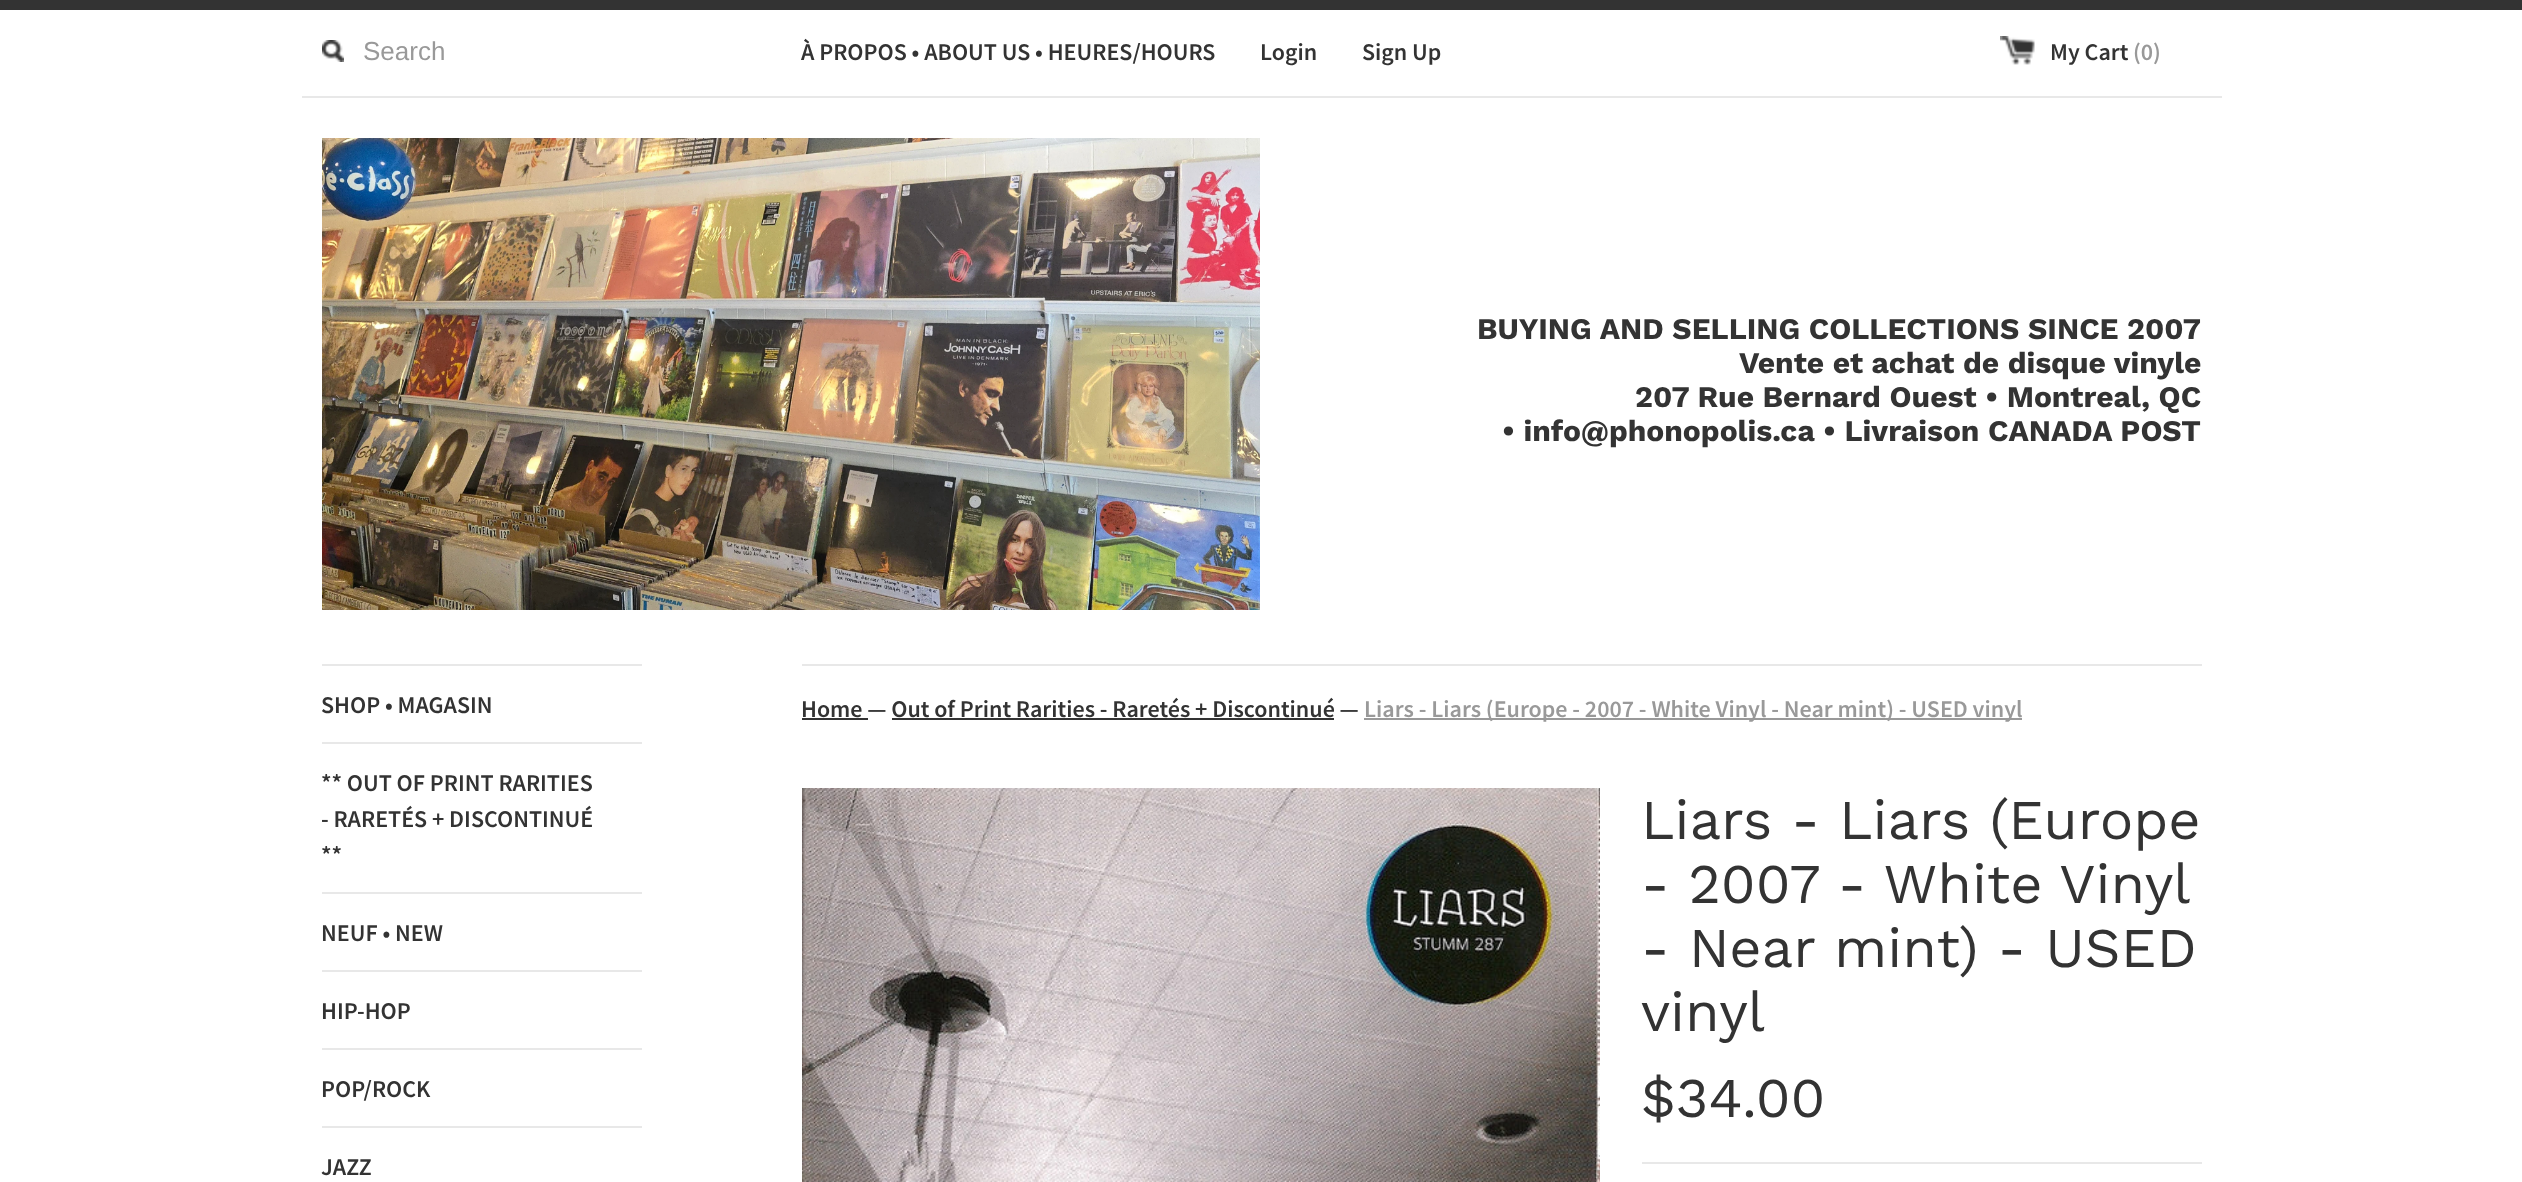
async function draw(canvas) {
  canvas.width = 2522;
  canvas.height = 1182;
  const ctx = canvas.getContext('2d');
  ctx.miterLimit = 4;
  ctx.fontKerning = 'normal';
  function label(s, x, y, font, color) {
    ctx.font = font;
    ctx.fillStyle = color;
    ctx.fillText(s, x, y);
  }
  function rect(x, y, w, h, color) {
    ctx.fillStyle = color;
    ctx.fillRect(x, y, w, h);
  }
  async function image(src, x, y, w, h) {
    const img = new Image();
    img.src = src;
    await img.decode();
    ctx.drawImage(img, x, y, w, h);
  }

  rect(0, 0, 2522, 1182, '#fff');
  rect(0, 0, 2522, 10, '#333');
  rect(302, 96, 1920, 2, '#e8e8e8');
  await image('assets/img1.png', 322, 40, 22, 22);
  label('Search', 363, 60, '26px Liberation Sans', '#999');
  label('À PROPOS • ABOUT US • HEURES/HOURS', 801, 60, '600 24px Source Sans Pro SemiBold', '#333');
  label('Login', 1260, 60, '600 24px Source Sans Pro SemiBold', '#333');
  label('Sign Up', 1362, 60, '600 24px Source Sans Pro SemiBold', '#333');
  await image('assets/img2.png', 2000, 36, 35, 29);
  label('My Cart', 2050, 60, '600 24px Source Sans Pro SemiBold', '#333');
  label('(0)', 2133, 60, '600 24px Source Sans Pro SemiBold', '#999');
  await image('assets/img3.png', 322, 138, 938, 472);
  label('BUYING AND SELLING COLLECTIONS SINCE 2007', 1477, 339, 'bold 30px Work Sans', '#333');
  label('Vente et achat de disque vinyle', 1739, 373, 'bold 30px Work Sans', '#333');
  label('207 Rue Bernard Ouest • Montreal, QC', 1635, 407, 'bold 30px Work Sans', '#333');
  label('• info@phonopolis.ca • Livraison CANADA POST', 1502, 441, 'bold 30px Work Sans', '#333');
  rect(322, 664, 320, 2, '#e8e8e8');
  label('SHOP • MAGASIN', 321, 713, '600 24px Source Sans Pro SemiBold', '#333');
  rect(322, 742, 320, 2, '#e8e8e8');
  label('** OUT OF PRINT RARITIES', 321, 791, '600 24px Source Sans Pro SemiBold', '#333');
  label('- RARETÉS + DISCONTINUÉ', 321, 827, '600 24px Source Sans Pro SemiBold', '#333');
  label('**', 321, 863, '600 24px Source Sans Pro SemiBold', '#333');
  rect(322, 892, 320, 2, '#e8e8e8');
  label('NEUF • NEW', 321, 941, '600 24px Source Sans Pro SemiBold', '#333');
  rect(322, 970, 320, 2, '#e8e8e8');
  label('HIP-HOP', 321, 1019, '600 24px Source Sans Pro SemiBold', '#333');
  rect(322, 1048, 320, 2, '#e8e8e8');
  label('POP/ROCK', 321, 1097, '600 24px Source Sans Pro SemiBold', '#333');
  rect(322, 1126, 320, 2, '#e8e8e8');
  label('JAZZ', 321, 1175, '600 24px Source Sans Pro SemiBold', '#333');
  rect(802, 664, 1400, 2, '#e8e8e8');
  label('Home — Out of Print Rarities - Raretés + Discontinué —', 801, 717, '600 24px Source Sans Pro SemiBold', '#333');
  rect(802, 718, 66, 2, '#333');
  rect(1364, 718, 658, 2, '#999');
  label('Liars - Liars (Europe - 2007 - White Vinyl - Near mint) - USED vinyl', 1364, 717, '600 24px Source Sans Pro SemiBold', '#999');
  rect(892, 718, 442, 2, '#333');
  await image('assets/img4.png', 802, 788, 798, 394);
  label('Liars - Liars (Europe', 1641, 839, '56px Work Sans', '#333');
  ctx.wordSpacing = '-0.5px';
  label('- 2007 - White Vinyl', 1641, 903, '56px Work Sans', '#333');
  ctx.wordSpacing = '0px';
  label('- Near mint) - USED', 1641, 967, '56px Work Sans', '#333');
  label('vinyl', 1641, 1031, '56px Work Sans', '#333');
  label('$34.00', 1641, 1117, '56px Work Sans', '#333');
  rect(1642, 1162, 560, 2, '#e8e8e8');
}

draw(document.querySelector('canvas'));
